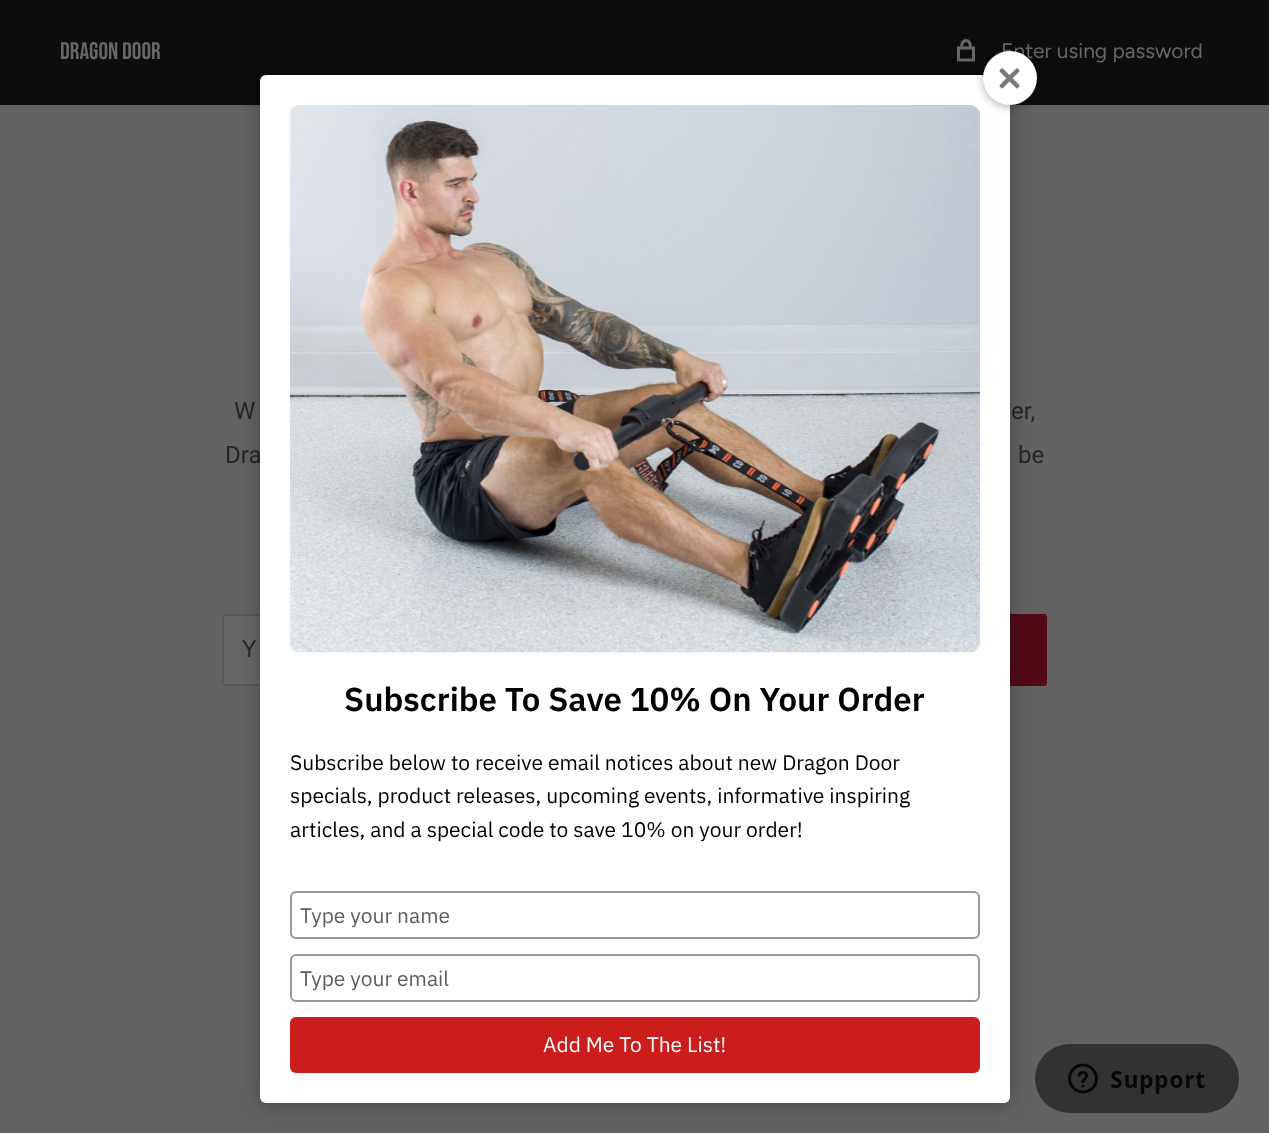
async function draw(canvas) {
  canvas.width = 1269;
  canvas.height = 1133;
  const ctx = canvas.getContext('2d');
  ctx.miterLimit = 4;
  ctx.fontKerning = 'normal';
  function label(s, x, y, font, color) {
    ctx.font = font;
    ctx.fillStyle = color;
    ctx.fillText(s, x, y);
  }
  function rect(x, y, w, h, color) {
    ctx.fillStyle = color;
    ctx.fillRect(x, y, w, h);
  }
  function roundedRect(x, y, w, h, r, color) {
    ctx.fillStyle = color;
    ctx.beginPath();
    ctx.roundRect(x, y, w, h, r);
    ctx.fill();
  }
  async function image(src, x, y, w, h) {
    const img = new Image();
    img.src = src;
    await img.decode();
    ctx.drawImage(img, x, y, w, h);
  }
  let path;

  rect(0, 0, 1269, 1133, '#626262');
  rect(0, 0, 1269, 105, '#0e0d0d');
  label('Dragon Door', 60, 59, '24px Bebas Neue', '#666');
  path = new Path2D('M966 40.5C961.5 40.5 961.5 45 961.5 48H970.5C970.5 45 970.5 40.5 966 40.5ZM958.5 48H973.5V60H958.5Z');
  ctx.strokeStyle = '#666';
  ctx.lineWidth = 3;
  ctx.lineCap = 'square';
  ctx.stroke(path);
  label('Enter using password', 1001, 58, '21px Figtree', '#666');
  label('W', 234, 419, '24px Roboto', '#272727');
  label('er,', 1011, 419, '24px Roboto', '#272727');
  label('Dra', 225, 463, '24px Roboto', '#272727');
  label('be', 1018, 463, '24px Roboto', '#272727');
  ctx.fillStyle = '#666';
  ctx.beginPath();
  ctx.roundRect(223, 615, 604, 70, 2);
  ctx.fill();
  ctx.strokeStyle = '#585858';
  ctx.lineWidth = 2;
  ctx.stroke();
  label('Y', 242, 657, '24px Figtree', '#272727');
  roundedRect(846, 614, 201, 72, 3, '#510a16');
  await image('assets/img3.png', 1035, 1044, 204, 69);
  ctx.fillStyle = '#0000004d';
  ctx.filter = 'blur(10px)';
  ctx.beginPath();
  ctx.roundRect(260, 77, 750, 1027, 6);
  ctx.fill();
  ctx.filter = 'none';
  roundedRect(260, 75, 750, 1028, 6, '#fff');
  await image('assets/img2.png', 290, 105, 690, 548);
  ctx.fillStyle = '#0000004d';
  ctx.filter = 'blur(4px)';
  ctx.beginPath();
  ctx.roundRect(983, 53, 54, 54, 27);
  ctx.fill();
  ctx.filter = 'none';
  ctx.fillStyle = '#fff';
  ctx.beginPath();
  ctx.arc(1010, 78, 27, 0, 2 * Math.PI);
  ctx.fill();
  await image('assets/img1.png', 998, 68, 22, 21);
  label('Subscribe To Save 10% On Your Order', 344, 711, '600 33px IBM Plex Sans', '#000');
  label('Subscribe below to receive email notices about new Dragon Door', 290, 770, '21px IBM Plex Sans', '#000');
  label('specials, product releases, upcoming events, informative inspiring', 290, 803, '21px IBM Plex Sans', '#000');
  label('articles, and a special code to save 10% on your order!', 290, 837, '21px IBM Plex Sans', '#000');
  ctx.beginPath();
  ctx.roundRect(291, 892, 688, 46, 5);
  ctx.strokeStyle = '#979797';
  ctx.stroke();
  label('Type your name', 300, 923, '21px IBM Plex Sans', '#5d5d5d');
  ctx.beginPath();
  ctx.roundRect(291, 955, 688, 46, 5);
  ctx.stroke();
  label('Type your email', 300, 986, '21px IBM Plex Sans', '#5d5d5d');
  roundedRect(290, 1017, 690, 56, 6, '#cc1d1d');
  label('Add Me To The List!', 543, 1052, '21px IBM Plex Sans', '#fff');
}

draw(document.querySelector('canvas'));
